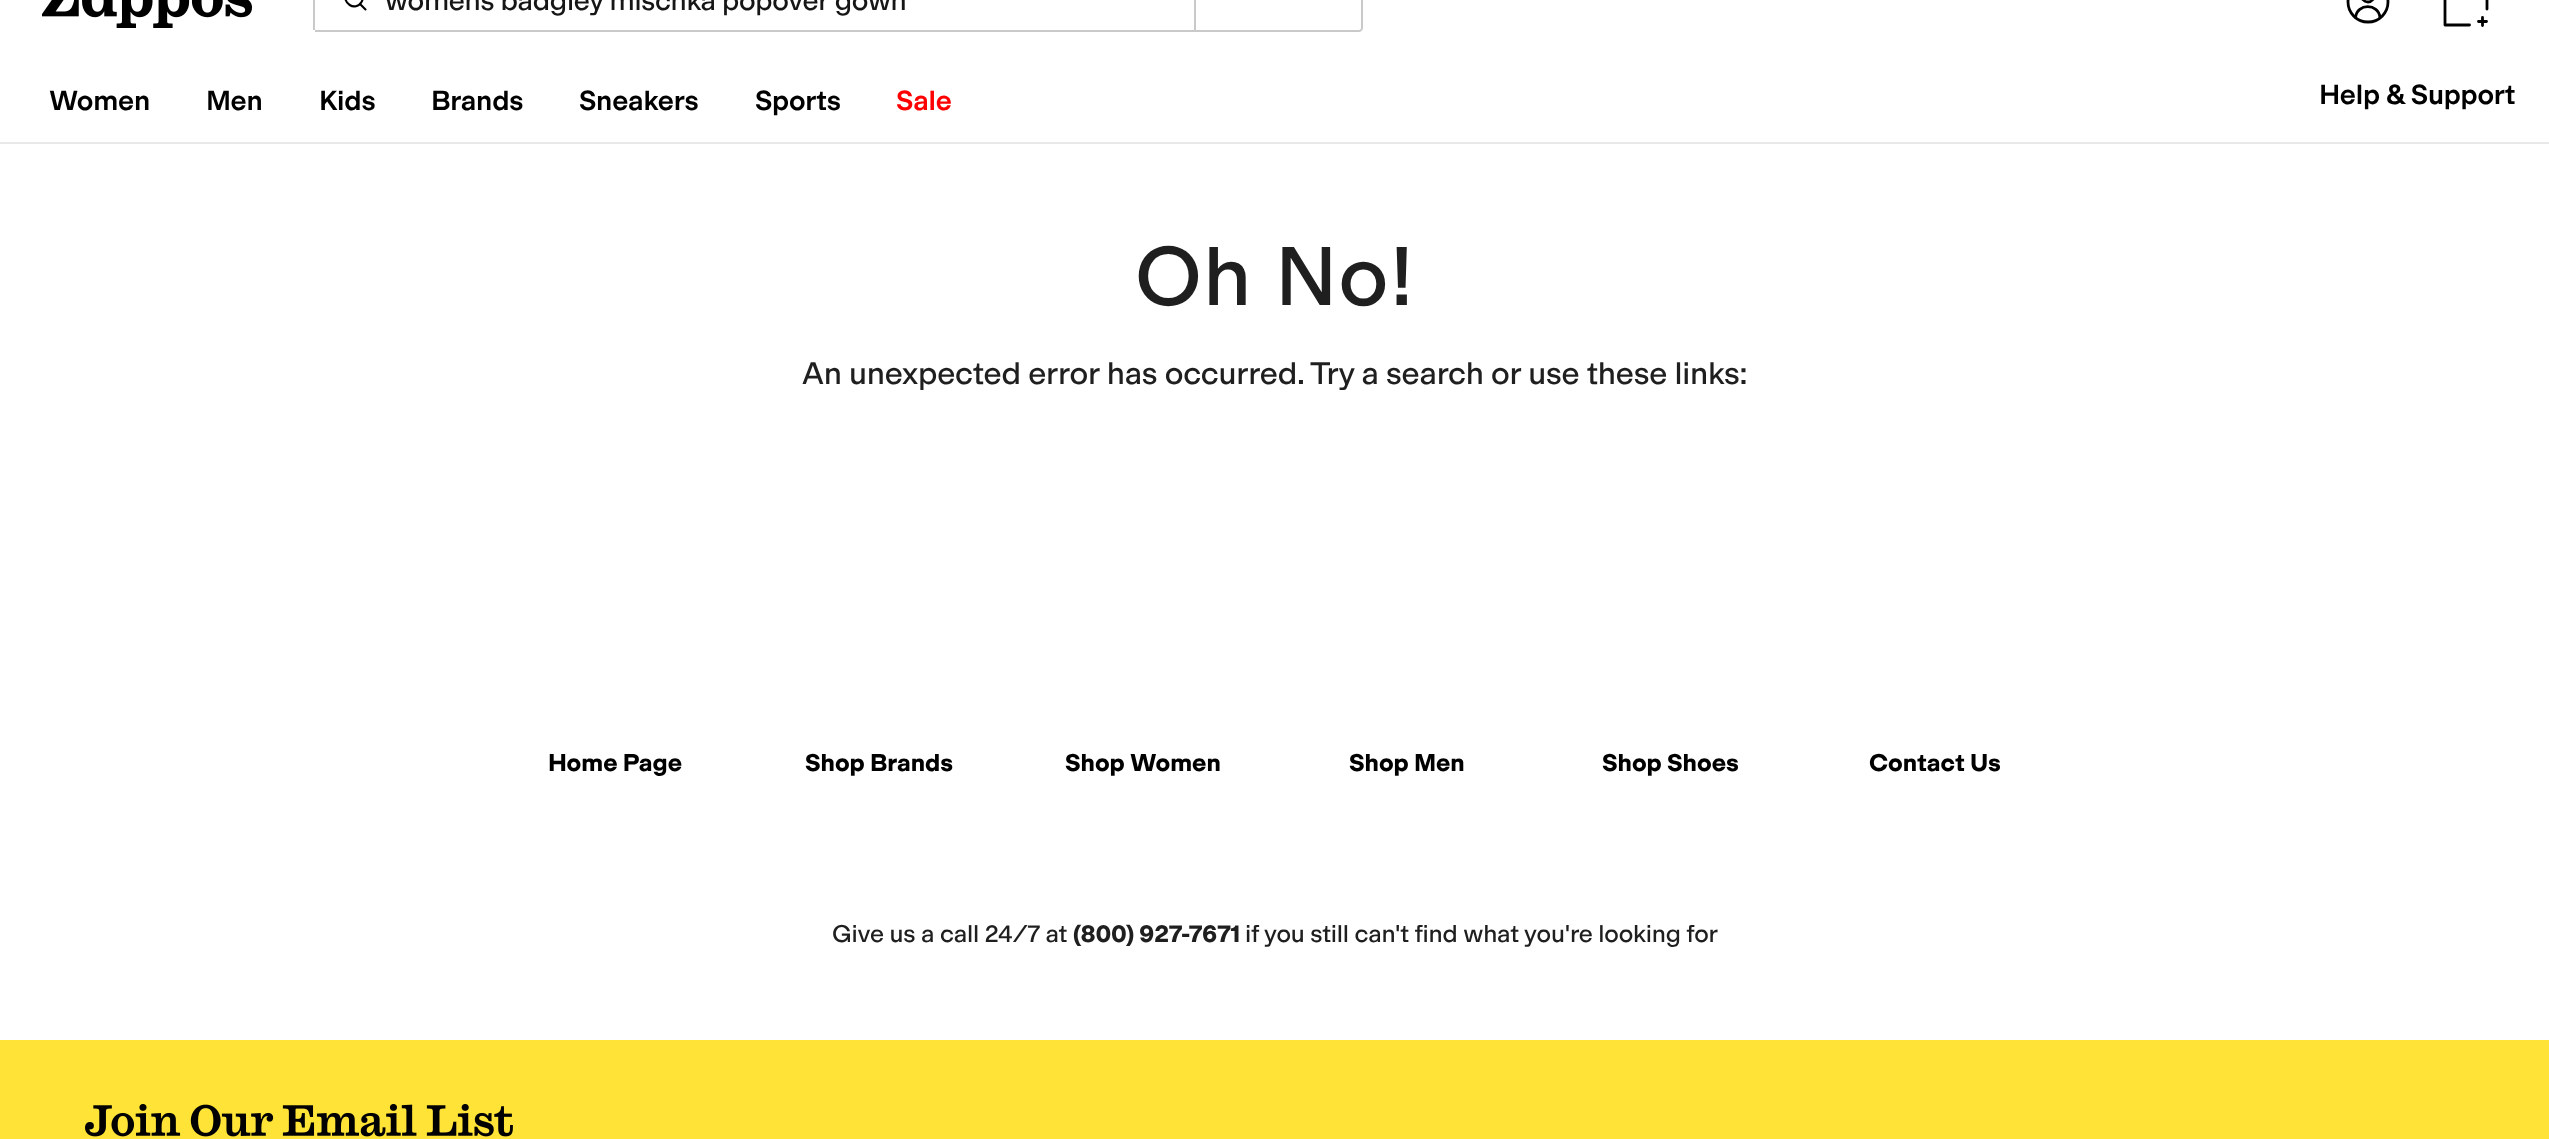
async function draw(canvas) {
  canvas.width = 2549;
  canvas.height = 1139;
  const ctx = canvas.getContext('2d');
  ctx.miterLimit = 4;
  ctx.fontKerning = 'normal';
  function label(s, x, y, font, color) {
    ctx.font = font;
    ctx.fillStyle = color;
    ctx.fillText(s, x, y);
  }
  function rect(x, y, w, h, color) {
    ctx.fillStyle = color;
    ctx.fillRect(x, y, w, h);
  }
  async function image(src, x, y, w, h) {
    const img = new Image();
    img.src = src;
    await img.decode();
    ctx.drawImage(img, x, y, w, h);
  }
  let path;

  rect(0, 0, 2549, 1139, '#fff');
  rect(0, 142, 2549, 2, '#e9e9e9');
  await image('assets/img1.png', 42, 0, 210, 28);
  path = new Path2D('M346.5-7C341 3 355.5 12 361.5 2C367.5-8 352-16.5 346.5-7');
  ctx.strokeStyle = '#000';
  ctx.lineWidth = 2.1;
  ctx.lineCap = 'round';
  ctx.lineJoin = 'round';
  ctx.stroke(path);
  path = new Path2D('M360 4L365.5 9.5');
  ctx.lineJoin = 'miter';
  ctx.stroke(path);
  rect(315, 30, 879, 2, '#c9c9c9');
  rect(313, 0, 2, 30, '#c9c9c9');
  ctx.letterSpacing = '-0.3px';
  label('womens badgley mischka popover gown', 385, 10, '28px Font', '#161616');
  path = new Path2D('M1195-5H1359C1360.5-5 1362-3.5 1362-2V28C1362 29.5 1360.5 31 1359 31H1195Z');
  ctx.strokeStyle = '#c9c9c9';
  ctx.lineWidth = 2;
  ctx.stroke(path);
  path = new Path2D('M2368 2C2359 1.5 2359-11.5 2368-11.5C2376.5-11.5 2376.5 1.5 2368 2M2355.5 17.5C2357 3 2378.5 3 2380 17.5');
  ctx.strokeStyle = '#000';
  ctx.lineWidth = 2.8;
  ctx.lineJoin = 'round';
  ctx.stroke(path);
  ctx.beginPath();
  ctx.arc(2368, 2, 20, 0, 2 * Math.PI);
  ctx.stroke();
  path = new Path2D('M2477.5-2V-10.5C2477.5-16.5 2472-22 2466-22C2459.5-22 2454-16.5 2454-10.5V-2M2478.5 21.5H2486.5M2482.5 17.5V25.5M2487 9V-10H2445V25H2469.5');
  ctx.stroke(path);
  ctx.letterSpacing = '-0.2px';
  label('Women', 49, 110, '500 28px Font', '#000');
  label('Men', 206, 110, '500 28px Font', '#000');
  label('Kids', 319, 110, '500 28px Font', '#000');
  label('Brands', 431, 110, '500 28px Font', '#000');
  label('Sneakers', 579, 110, '500 28px Font', '#000');
  label('Sports', 755, 110, '500 28px Font', '#000');
  label('Sale', 896, 110, '500 28px Font', '#f00');
  label('Help & Support', 2319, 104, '500 28px Font', '#000');
  ctx.letterSpacing = '1.75px';
  label('Oh No!', 1135, 305, '84px Font', '#1f1f1f');
  ctx.letterSpacing = '-0.2px';
  label('An unexpected error has occurred.', 802, 384, '31.5px Font', '#1f1f1f');
  label('Try a search or use these links:', 1310, 384, '31.5px Font', '#1f1f1f');
  ctx.letterSpacing = '0px';
  label('Home Page', 548, 771, 'bold 24.5px Font', '#000');
  label('Shop Brands', 805, 771, 'bold 24.5px Font', '#000');
  label('Shop Women', 1065, 771, 'bold 24.5px Font', '#000');
  label('Shop Men', 1349, 771, 'bold 24.5px Font', '#000');
  label('Shop Shoes', 1602, 771, 'bold 24.5px Font', '#000');
  label('Contact Us', 1869, 771, 'bold 24.5px Font', '#000');
  ctx.letterSpacing = '-0.2px';
  label('Give us a call 24/7 at', 832, 942, '24.5px Font', '#1f1f1f');
  label('(800) 927-7671', 1073, 942, 'bold 24.5px Font', '#1f1f1f');
  label('if you still can\'t find what you\'re looking for', 1245, 942, '24.5px Font', '#1f1f1f');
  rect(0, 1040, 2549, 99, '#ffe337');
  await image('assets/img2.png', 85, 1104, 428, 33);
}

draw(document.querySelector('canvas'));
